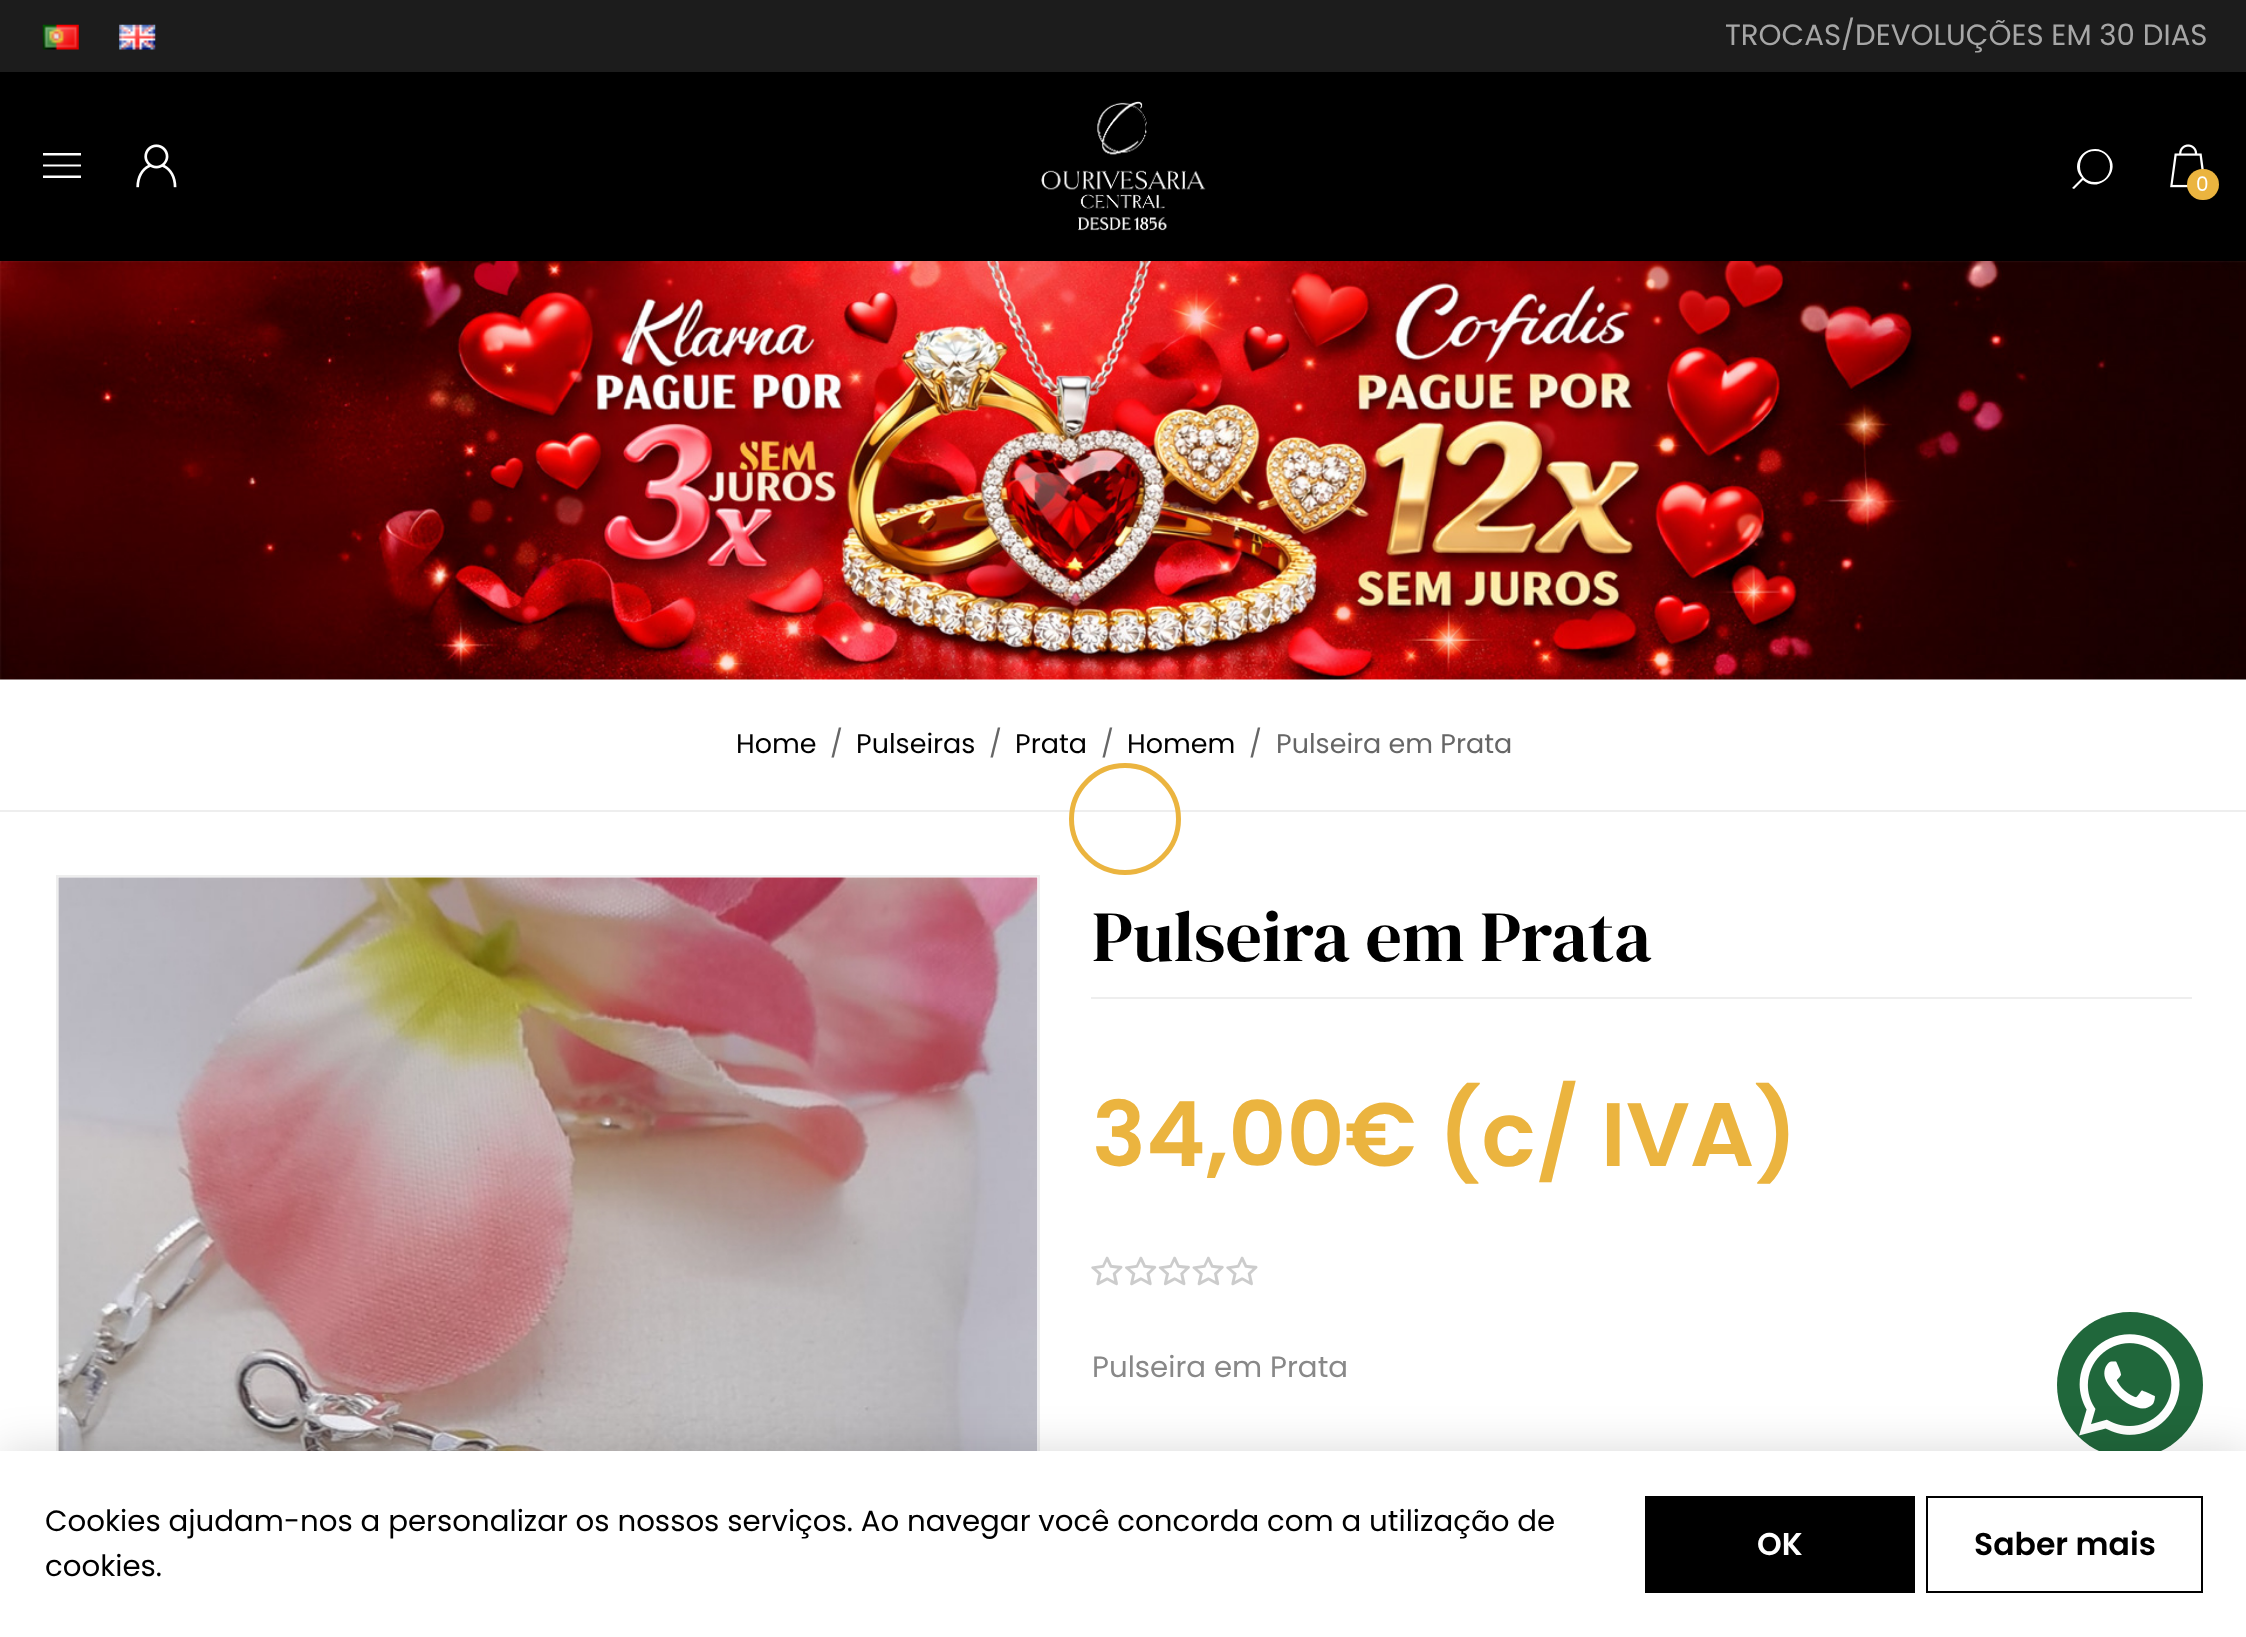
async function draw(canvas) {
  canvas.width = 2246;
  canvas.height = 1637;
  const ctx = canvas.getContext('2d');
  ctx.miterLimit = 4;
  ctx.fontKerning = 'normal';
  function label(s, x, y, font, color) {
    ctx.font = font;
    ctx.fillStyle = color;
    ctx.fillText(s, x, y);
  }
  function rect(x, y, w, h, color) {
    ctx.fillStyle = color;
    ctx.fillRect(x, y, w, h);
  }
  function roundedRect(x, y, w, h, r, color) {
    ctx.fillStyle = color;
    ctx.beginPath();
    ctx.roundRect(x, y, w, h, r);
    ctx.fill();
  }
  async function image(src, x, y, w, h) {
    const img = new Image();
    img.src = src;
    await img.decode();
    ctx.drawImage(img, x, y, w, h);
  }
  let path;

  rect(0, 0, 2246, 1637, '#fff');
  rect(0, 0, 2246, 72, '#1c1c1c');
  await image('assets/img1.png', 42, 24, 37, 26);
  await image('assets/img2.png', 119, 24, 37, 26);
  label('TROCAS/DEVOLUÇÕES EM 30 DIAS', 1725, 45, '29.25px Poppins', '#a6a6a6');
  rect(0, 72, 2246, 189, '#000');
  ctx.fillStyle = '#fff';
  path = new Path2D('M43 153H81V155.5H43ZM43 164.5H81V166.5H43ZM43 175.5H81V178H43Z');
  ctx.fill(path);
  await image('assets/img3.png', 136, 144, 41, 44);
  await image('assets/img4.png', 1041, 101, 165, 130);
  path = new Path2D('M2095 149C2080 149 2071 167 2082 178L2072 188L2074 189L2083 180C2099 195 2124 170 2107 154C2104 151 2100 149 2095 149ZM2095 182C2075 182 2075 151 2095 151C2115 151 2115 182 2095 182Z');
  ctx.fill(path);
  await image('assets/img5.png', 2170, 144, 34, 44);
  roundedRect(2187, 169, 32, 31, 15.5, '#ebb43f');
  label('0', 2196, 191, '20px Poppins', '#fff');
  await image('assets/img6.png', 0, 261, 2246, 419);
  rect(0, 810, 2246, 2, '#eee');
  ctx.beginPath();
  ctx.arc(1125, 819, 53.5, 0, 2 * Math.PI);
  ctx.strokeStyle = '#ebb43f';
  ctx.lineWidth = 5;
  ctx.stroke();
  label('Home', 736, 753, '27px Poppins', '#000');
  label('/', 830, 753, '27px Poppins', '#666');
  label('Pulseiras', 856, 753, '27px Poppins', '#000');
  label('/', 989, 753, '27px Poppins', '#666');
  label('Prata', 1015, 753, '27px Poppins', '#000');
  label('/', 1101, 753, '27px Poppins', '#666');
  label('Homem', 1127, 753, '27px Poppins', '#000');
  label('/', 1249, 753, '27px Poppins', '#666');
  label('Pulseira em Prata', 1276, 753, '27px Poppins', '#666');
  ctx.strokeStyle = '#eee';
  ctx.lineWidth = 2;
  ctx.strokeRect(57, 876, 982, 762);
  await image('assets/img7.png', 58, 877, 980, 574);
  rect(1091, 997, 1101, 2, '#eee');
  label('Pulseira em Prata', 1092, 961, '72px DM Serif Display', '#000');
  label('34,00€ (c/ IVA)', 1092, 1166, '600 90px Poppins', '#ebb43f');
  await image('assets/img8.png', 1091, 1256, 167, 30);
  label('Pulseira em Prata', 1092, 1377, '29.25px Poppins', '#888');
  ctx.fillStyle = '#20673b';
  ctx.beginPath();
  ctx.arc(2130, 1385, 73, 0, 2 * Math.PI);
  ctx.fill();
  await image('assets/img9.png', 2079, 1334, 101, 102);
  ctx.fillStyle = '#00000026';
  ctx.filter = 'blur(22.5px)';
  ctx.beginPath();
  ctx.rect(0, 1451, 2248, 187);
  ctx.fill();
  ctx.filter = 'none';
  rect(0, 1451, 2246, 186, '#fff');
  label('Cookies ajudam-nos a personalizar os nossos serviços. Ao navegar você concorda com a utilização de', 45, 1531, '29.25px Poppins', '#000');
  label('cookies.', 45, 1576, '29.25px Poppins', '#000');
  rect(1645, 1496, 270, 97, '#000');
  label('OK', 1757, 1555, '600 31.5px Poppins', '#fff');
  ctx.strokeStyle = '#000';
  ctx.strokeRect(1927, 1497, 275, 95);
  label('Saber mais', 1974, 1555, '600 31.5px Poppins', '#000');
}

draw(document.querySelector('canvas'));
